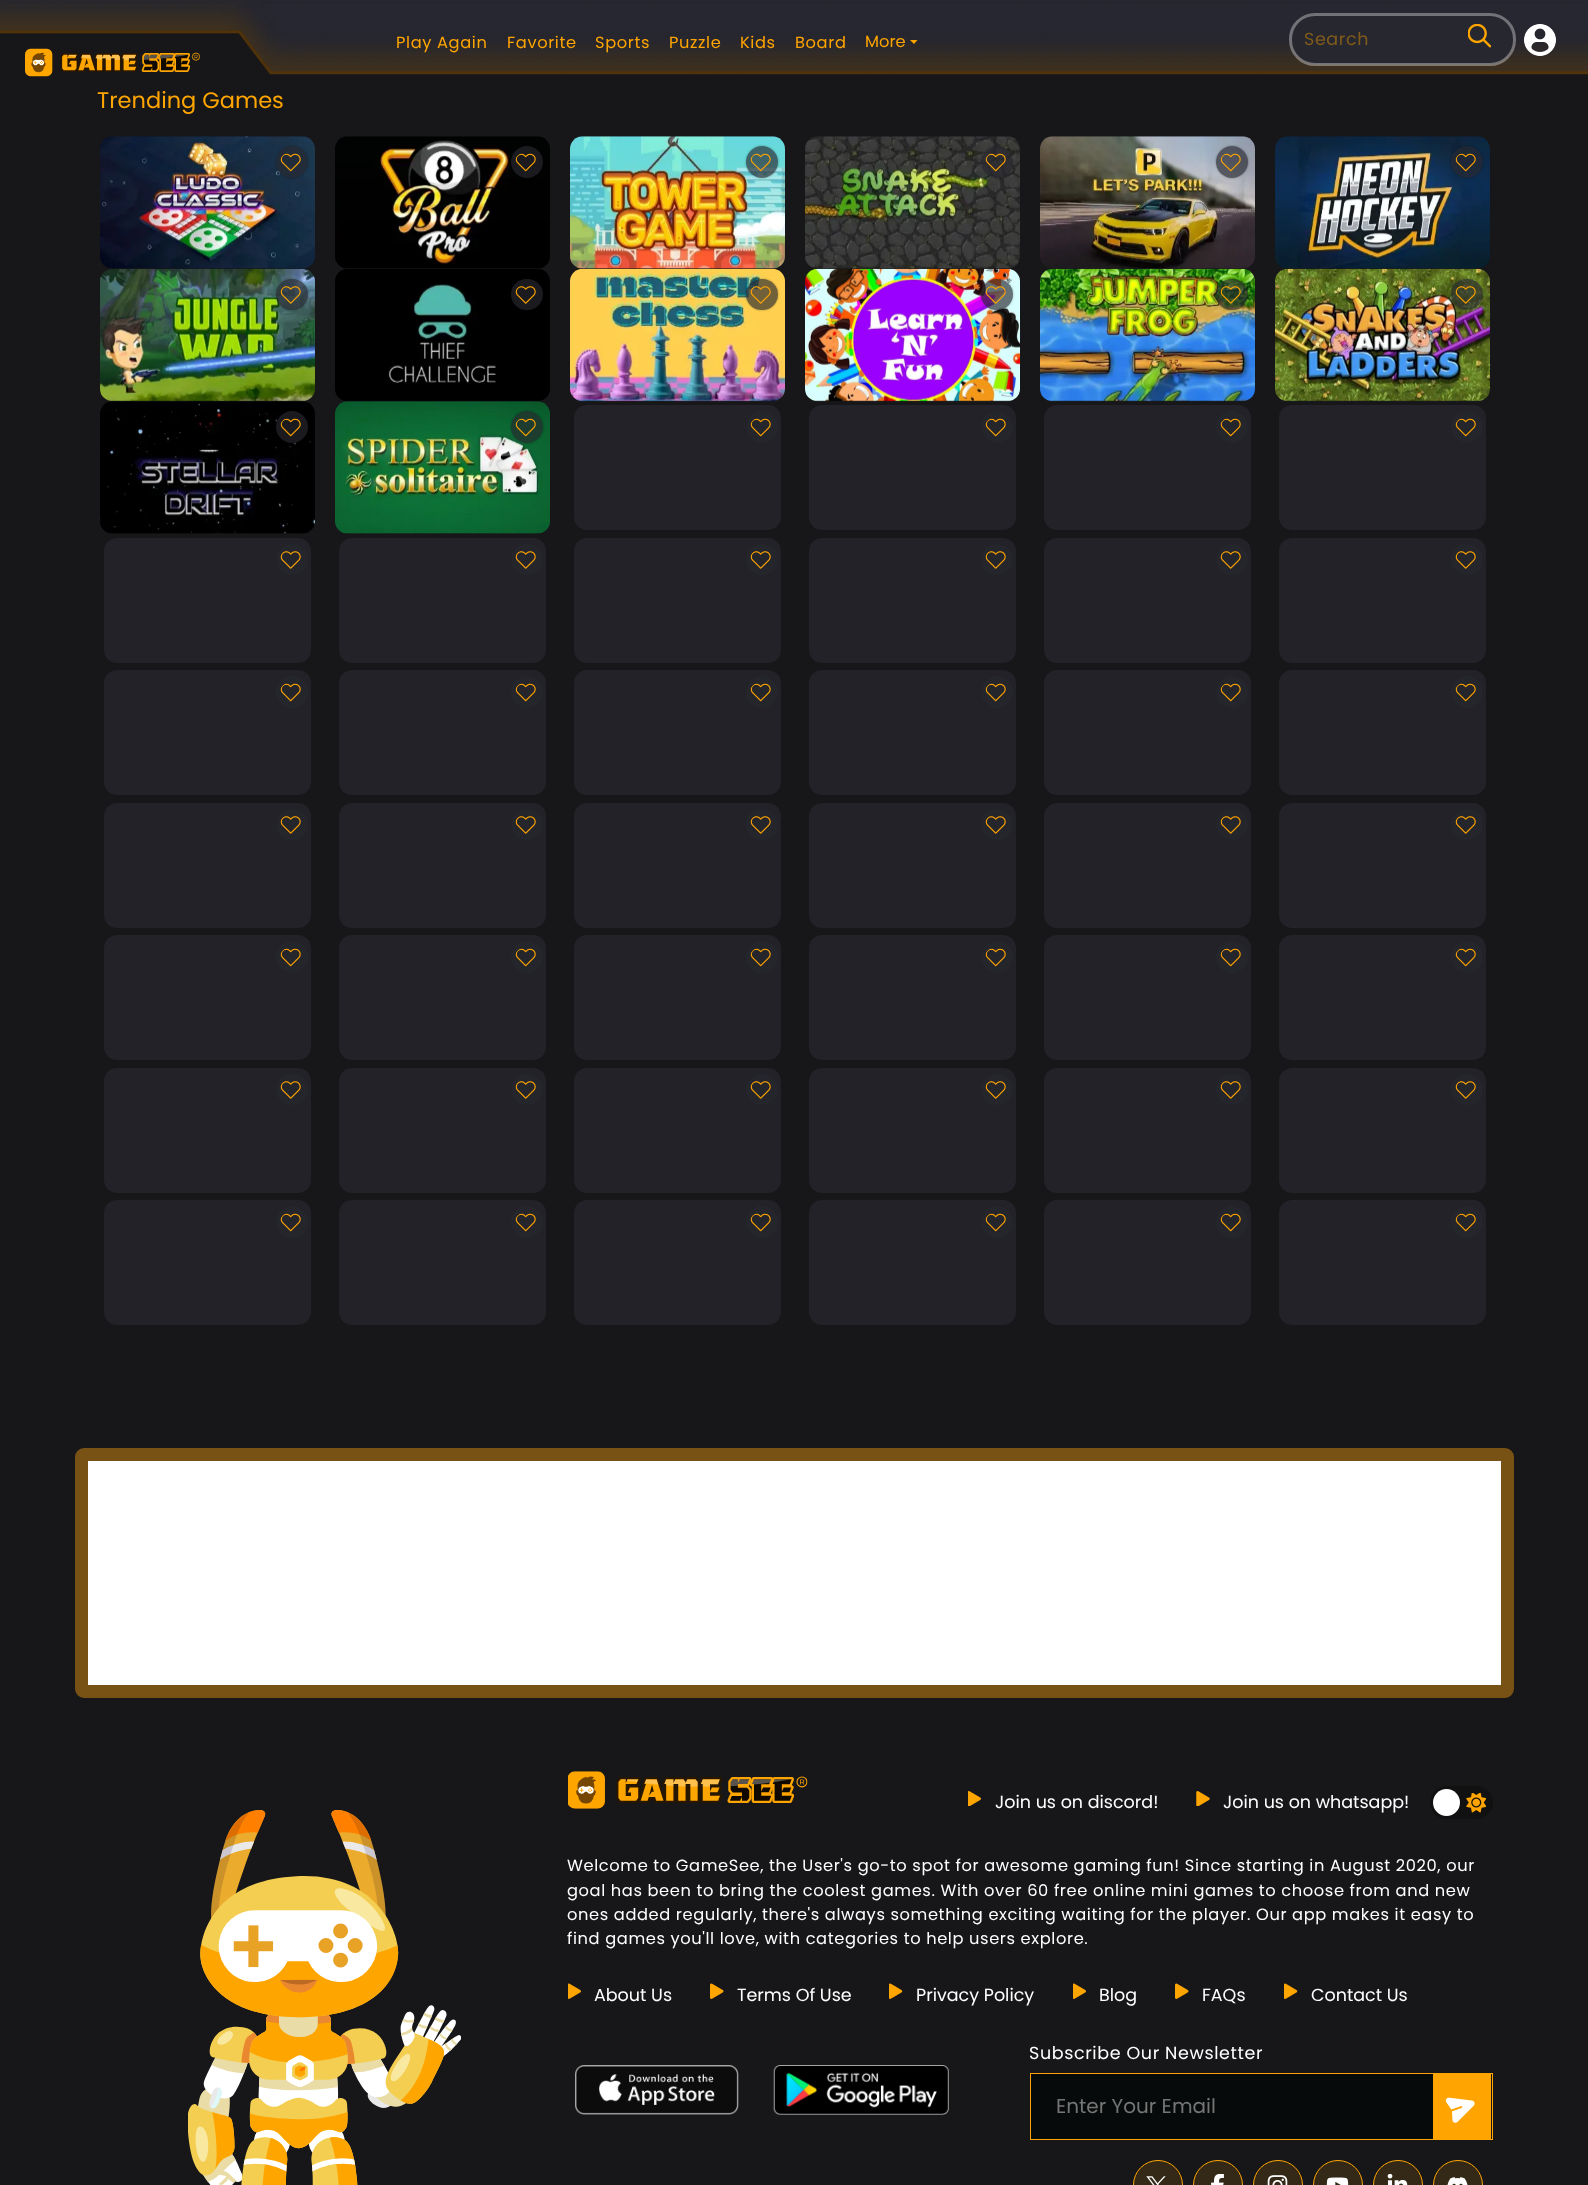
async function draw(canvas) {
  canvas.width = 1588;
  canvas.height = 2185;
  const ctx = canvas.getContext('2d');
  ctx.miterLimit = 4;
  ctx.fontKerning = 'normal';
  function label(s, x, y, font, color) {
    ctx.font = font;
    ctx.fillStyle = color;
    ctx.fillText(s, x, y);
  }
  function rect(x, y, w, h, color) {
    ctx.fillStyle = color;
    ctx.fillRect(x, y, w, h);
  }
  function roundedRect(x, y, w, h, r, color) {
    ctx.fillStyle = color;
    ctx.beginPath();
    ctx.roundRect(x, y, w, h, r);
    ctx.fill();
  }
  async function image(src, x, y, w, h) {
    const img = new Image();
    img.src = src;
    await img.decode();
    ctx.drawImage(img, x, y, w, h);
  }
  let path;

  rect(0, 0, 1588, 2185, '#17171a');
  await image('assets/img1.png', 0, 0, 1588, 75);
  ctx.letterSpacing = '0.62px';
  label('Play Again', 396, 48, '16.25px Poppins', '#ffa500');
  label('Favorite', 507, 48, '16.25px Poppins', '#ffa500');
  label('Sports', 595, 48, '16.25px Poppins', '#ffa500');
  label('Puzzle', 669, 48, '16.25px Poppins', '#ffa500');
  label('Kids', 740, 48, '16.25px Poppins', '#ffa500');
  label('Board', 795, 48, '16.25px Poppins', '#ffa500');
  ctx.letterSpacing = '0px';
  label('More', 865, 47, '16.25px Poppins', '#ffa500');
  path = new Path2D('M910 40H917.5L914 44Z');
  ctx.fill(path);
  roundedRect(1291, 15, 223, 49, 24, '#27272f');
  ctx.beginPath();
  ctx.roundRect(1290.5, 14.5, 224, 50, 24.5);
  ctx.strokeStyle = '#ffffff59';
  ctx.lineWidth = 3;
  ctx.stroke();
  ctx.letterSpacing = '0.62px';
  label('Search', 1304, 45, '17.5px Poppins', '#815b1b');
  await image('assets/img2.png', 1468, 24, 23, 24);
  await image('assets/img3.png', 1524, 24, 32, 32);
  await image('assets/img4.png', 25, 48, 175, 29);
  ctx.letterSpacing = '0px';
  label('Trending Games', 97, 108, '22.5px Poppins', '#ffa500');
  await image('assets/img5.png', 100, 136, 215, 133);
  ctx.save();
  path = new Path2D('M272 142H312V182H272ZM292 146C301 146 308 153 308 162C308 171 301 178 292 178C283 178 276 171 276 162C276 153 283 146 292 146Z');
  ctx.clip(path, 'evenodd');
  ctx.fillStyle = '#00000052';
  ctx.filter = 'blur(1px)';
  ctx.beginPath();
  ctx.roundRect(276, 146, 32, 32, 16);
  ctx.fill();
  ctx.filter = 'none';
  ctx.restore();
  ctx.fillStyle = '#27272fa8';
  ctx.beginPath();
  ctx.arc(292, 162, 16, 0, 2 * Math.PI);
  ctx.fill();
  await image('assets/img6.png', 280, 153, 21, 19);
  await image('assets/img7.png', 335, 136, 215, 133);
  ctx.beginPath();
  ctx.arc(527, 162, 16, 0, 2 * Math.PI);
  ctx.fill();
  await image('assets/img8.png', 515, 153, 21, 19);
  await image('assets/img9.png', 570, 136, 215, 133);
  ctx.save();
  path = new Path2D('M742 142H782V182H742ZM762 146C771 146 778 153 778 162C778 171 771 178 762 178C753 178 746 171 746 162C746 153 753 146 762 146Z');
  ctx.clip(path, 'evenodd');
  ctx.fillStyle = '#00000052';
  ctx.filter = 'blur(1px)';
  ctx.beginPath();
  ctx.roundRect(746, 146, 32, 32, 16);
  ctx.fill();
  ctx.filter = 'none';
  ctx.restore();
  ctx.beginPath();
  ctx.arc(762, 162, 16, 0, 2 * Math.PI);
  ctx.fill();
  await image('assets/img10.png', 750, 153, 21, 19);
  await image('assets/img11.png', 805, 136, 215, 133);
  ctx.beginPath();
  ctx.arc(997, 162, 16, 0, 2 * Math.PI);
  ctx.fill();
  await image('assets/img12.png', 985, 153, 21, 19);
  await image('assets/img13.png', 1040, 136, 215, 133);
  ctx.save();
  path = new Path2D('M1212 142H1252V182H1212ZM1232 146C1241 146 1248 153 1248 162C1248 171 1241 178 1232 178C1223 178 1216 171 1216 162C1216 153 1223 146 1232 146Z');
  ctx.clip(path, 'evenodd');
  ctx.fillStyle = '#00000052';
  ctx.filter = 'blur(1px)';
  ctx.beginPath();
  ctx.roundRect(1216, 146, 32, 32, 16);
  ctx.fill();
  ctx.filter = 'none';
  ctx.restore();
  ctx.beginPath();
  ctx.arc(1232, 162, 16, 0, 2 * Math.PI);
  ctx.fill();
  await image('assets/img14.png', 1220, 153, 21, 19);
  await image('assets/img15.png', 1275, 136, 215, 133);
  ctx.save();
  path = new Path2D('M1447 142H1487V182H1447ZM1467 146C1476 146 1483 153 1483 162C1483 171 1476 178 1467 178C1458 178 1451 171 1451 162C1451 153 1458 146 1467 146Z');
  ctx.clip(path, 'evenodd');
  ctx.fillStyle = '#00000052';
  ctx.filter = 'blur(1px)';
  ctx.beginPath();
  ctx.roundRect(1451, 146, 32, 32, 16);
  ctx.fill();
  ctx.filter = 'none';
  ctx.restore();
  ctx.beginPath();
  ctx.arc(1467, 162, 16, 0, 2 * Math.PI);
  ctx.fill();
  await image('assets/img16.png', 1455, 153, 21, 19);
  await image('assets/img17.png', 100, 268, 215, 134);
  ctx.save();
  path = new Path2D('M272 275H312V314H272ZM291.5 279H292.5C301 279 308 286 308 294.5C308 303 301 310 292.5 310H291.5C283 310 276 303 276 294.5C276 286 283 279 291.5 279Z');
  ctx.clip(path, 'evenodd');
  ctx.fillStyle = '#00000052';
  ctx.filter = 'blur(1px)';
  ctx.beginPath();
  ctx.roundRect(276, 279, 32, 31, 15.5);
  ctx.fill();
  ctx.filter = 'none';
  ctx.restore();
  roundedRect(276, 279, 32, 31, 15.5, '#27272fa8');
  await image('assets/img18.png', 280, 286, 21, 18);
  await image('assets/img19.png', 335, 269, 215, 132);
  roundedRect(511, 279, 32, 31, 15.5, '#1a1a1f');
  await image('assets/img20.png', 515, 286, 21, 18);
  await image('assets/img21.png', 570, 268, 215, 134);
  ctx.save();
  path = new Path2D('M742 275H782V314H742ZM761.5 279H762.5C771 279 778 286 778 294.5C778 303 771 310 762.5 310H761.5C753 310 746 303 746 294.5C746 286 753 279 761.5 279Z');
  ctx.clip(path, 'evenodd');
  ctx.fillStyle = '#00000052';
  ctx.filter = 'blur(1px)';
  ctx.beginPath();
  ctx.roundRect(746, 279, 32, 31, 15.5);
  ctx.fill();
  ctx.filter = 'none';
  ctx.restore();
  roundedRect(746, 279, 32, 31, 15.5, '#27272fa8');
  await image('assets/img22.png', 750, 286, 21, 18);
  await image('assets/img23.png', 805, 268, 215, 134);
  ctx.save();
  path = new Path2D('M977 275H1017V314H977ZM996.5 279H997.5C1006 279 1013 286 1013 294.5C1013 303 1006 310 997.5 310H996.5C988 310 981 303 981 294.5C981 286 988 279 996.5 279Z');
  ctx.clip(path, 'evenodd');
  ctx.fillStyle = '#00000052';
  ctx.filter = 'blur(1px)';
  ctx.beginPath();
  ctx.roundRect(981, 279, 32, 31, 15.5);
  ctx.fill();
  ctx.filter = 'none';
  ctx.restore();
  roundedRect(981, 279, 32, 31, 15.5, '#27272fa8');
  await image('assets/img24.png', 985, 286, 21, 18);
  await image('assets/img25.png', 1040, 268, 215, 134);
  ctx.save();
  path = new Path2D('M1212 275H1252V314H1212ZM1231.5 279H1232.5C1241 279 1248 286 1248 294.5C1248 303 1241 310 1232.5 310H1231.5C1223 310 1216 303 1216 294.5C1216 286 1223 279 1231.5 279Z');
  ctx.clip(path, 'evenodd');
  ctx.fillStyle = '#00000052';
  ctx.filter = 'blur(1px)';
  ctx.beginPath();
  ctx.roundRect(1216, 279, 32, 31, 15.5);
  ctx.fill();
  ctx.filter = 'none';
  ctx.restore();
  roundedRect(1216, 279, 32, 31, 15.5, '#27272fa8');
  await image('assets/img26.png', 1220, 286, 21, 18);
  await image('assets/img27.png', 1275, 268, 215, 134);
  ctx.save();
  path = new Path2D('M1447 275H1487V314H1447ZM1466.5 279H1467.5C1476 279 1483 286 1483 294.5C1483 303 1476 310 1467.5 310H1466.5C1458 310 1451 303 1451 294.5C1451 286 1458 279 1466.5 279Z');
  ctx.clip(path, 'evenodd');
  ctx.fillStyle = '#00000052';
  ctx.filter = 'blur(1px)';
  ctx.beginPath();
  ctx.roundRect(1451, 279, 32, 31, 15.5);
  ctx.fill();
  ctx.filter = 'none';
  ctx.restore();
  roundedRect(1451, 279, 32, 31, 15.5, '#27272fa8');
  await image('assets/img28.png', 1455, 286, 21, 18);
  await image('assets/img29.png', 100, 401, 215, 133);
  ctx.beginPath();
  ctx.arc(292, 427, 16, 0, 2 * Math.PI);
  ctx.fill();
  await image('assets/img30.png', 280, 418, 21, 19);
  await image('assets/img31.png', 335, 401, 215, 133);
  ctx.save();
  path = new Path2D('M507 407H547V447H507ZM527 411C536 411 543 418 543 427C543 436 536 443 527 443C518 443 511 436 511 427C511 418 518 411 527 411Z');
  ctx.clip(path, 'evenodd');
  ctx.fillStyle = '#00000052';
  ctx.filter = 'blur(1px)';
  ctx.beginPath();
  ctx.roundRect(511, 411, 32, 32, 16);
  ctx.fill();
  ctx.filter = 'none';
  ctx.restore();
  ctx.beginPath();
  ctx.arc(527, 427, 16, 0, 2 * Math.PI);
  ctx.fill();
  await image('assets/img32.png', 515, 418, 21, 19);
  roundedRect(574, 405, 207, 125, 13, '#222228');
  ctx.fillStyle = '#27272fa8';
  ctx.beginPath();
  ctx.arc(762, 427, 16, 0, 2 * Math.PI);
  ctx.fill();
  await image('assets/img33.png', 750, 418, 21, 19);
  roundedRect(809, 405, 207, 125, 13, '#222228');
  ctx.fillStyle = '#27272fa8';
  ctx.beginPath();
  ctx.arc(997, 427, 16, 0, 2 * Math.PI);
  ctx.fill();
  await image('assets/img33.png', 985, 418, 21, 19);
  roundedRect(1044, 405, 207, 125, 13, '#222228');
  ctx.fillStyle = '#27272fa8';
  ctx.beginPath();
  ctx.arc(1232, 427, 16, 0, 2 * Math.PI);
  ctx.fill();
  await image('assets/img33.png', 1220, 418, 21, 19);
  roundedRect(1279, 405, 207, 125, 13, '#222228');
  ctx.fillStyle = '#27272fa8';
  ctx.beginPath();
  ctx.arc(1467, 427, 16, 0, 2 * Math.PI);
  ctx.fill();
  await image('assets/img33.png', 1455, 418, 21, 19);
  roundedRect(104, 538, 207, 125, 13, '#222228');
  roundedRect(276, 544, 32, 31, 15.5, '#27272fa8');
  await image('assets/img34.png', 280, 551, 21, 18);
  roundedRect(339, 538, 207, 125, 13, '#222228');
  roundedRect(511, 544, 32, 31, 15.5, '#27272fa8');
  await image('assets/img34.png', 515, 551, 21, 18);
  roundedRect(574, 538, 207, 125, 13, '#222228');
  roundedRect(746, 544, 32, 31, 15.5, '#27272fa8');
  await image('assets/img34.png', 750, 551, 21, 18);
  roundedRect(809, 538, 207, 125, 13, '#222228');
  roundedRect(981, 544, 32, 31, 15.5, '#27272fa8');
  await image('assets/img34.png', 985, 551, 21, 18);
  roundedRect(1044, 538, 207, 125, 13, '#222228');
  roundedRect(1216, 544, 32, 31, 15.5, '#27272fa8');
  await image('assets/img34.png', 1220, 551, 21, 18);
  roundedRect(1279, 538, 207, 125, 13, '#222228');
  roundedRect(1451, 544, 32, 31, 15.5, '#27272fa8');
  await image('assets/img34.png', 1455, 551, 21, 18);
  roundedRect(104, 670, 207, 125, 13, '#222228');
  ctx.fillStyle = '#27272fa8';
  ctx.beginPath();
  ctx.arc(292, 692, 16, 0, 2 * Math.PI);
  ctx.fill();
  await image('assets/img33.png', 280, 683, 21, 19);
  roundedRect(339, 670, 207, 125, 13, '#222228');
  ctx.fillStyle = '#27272fa8';
  ctx.beginPath();
  ctx.arc(527, 692, 16, 0, 2 * Math.PI);
  ctx.fill();
  await image('assets/img33.png', 515, 683, 21, 19);
  roundedRect(574, 670, 207, 125, 13, '#222228');
  ctx.fillStyle = '#27272fa8';
  ctx.beginPath();
  ctx.arc(762, 692, 16, 0, 2 * Math.PI);
  ctx.fill();
  await image('assets/img33.png', 750, 683, 21, 19);
  roundedRect(809, 670, 207, 125, 13, '#222228');
  ctx.fillStyle = '#27272fa8';
  ctx.beginPath();
  ctx.arc(997, 692, 16, 0, 2 * Math.PI);
  ctx.fill();
  await image('assets/img33.png', 985, 683, 21, 19);
  roundedRect(1044, 670, 207, 125, 13, '#222228');
  ctx.fillStyle = '#27272fa8';
  ctx.beginPath();
  ctx.arc(1232, 692, 16, 0, 2 * Math.PI);
  ctx.fill();
  await image('assets/img33.png', 1220, 683, 21, 19);
  roundedRect(1279, 670, 207, 125, 13, '#222228');
  ctx.fillStyle = '#27272fa8';
  ctx.beginPath();
  ctx.arc(1467, 692, 16, 0, 2 * Math.PI);
  ctx.fill();
  await image('assets/img33.png', 1455, 683, 21, 19);
  roundedRect(104, 803, 207, 125, 13, '#222228');
  roundedRect(276, 809, 32, 31, 15.5, '#27272fa8');
  await image('assets/img34.png', 280, 816, 21, 18);
  roundedRect(339, 803, 207, 125, 13, '#222228');
  roundedRect(511, 809, 32, 31, 15.5, '#27272fa8');
  await image('assets/img34.png', 515, 816, 21, 18);
  roundedRect(574, 803, 207, 125, 13, '#222228');
  roundedRect(746, 809, 32, 31, 15.5, '#27272fa8');
  await image('assets/img34.png', 750, 816, 21, 18);
  roundedRect(809, 803, 207, 125, 13, '#222228');
  roundedRect(981, 809, 32, 31, 15.5, '#27272fa8');
  await image('assets/img34.png', 985, 816, 21, 18);
  roundedRect(1044, 803, 207, 125, 13, '#222228');
  roundedRect(1216, 809, 32, 31, 15.5, '#27272fa8');
  await image('assets/img34.png', 1220, 816, 21, 18);
  roundedRect(1279, 803, 207, 125, 13, '#222228');
  roundedRect(1451, 809, 32, 31, 15.5, '#27272fa8');
  await image('assets/img34.png', 1455, 816, 21, 18);
  roundedRect(104, 935, 207, 125, 13, '#222228');
  ctx.fillStyle = '#27272fa8';
  ctx.beginPath();
  ctx.arc(292, 957, 16, 0, 2 * Math.PI);
  ctx.fill();
  await image('assets/img33.png', 280, 948, 21, 19);
  roundedRect(339, 935, 207, 125, 13, '#222228');
  ctx.fillStyle = '#27272fa8';
  ctx.beginPath();
  ctx.arc(527, 957, 16, 0, 2 * Math.PI);
  ctx.fill();
  await image('assets/img33.png', 515, 948, 21, 19);
  roundedRect(574, 935, 207, 125, 13, '#222228');
  ctx.fillStyle = '#27272fa8';
  ctx.beginPath();
  ctx.arc(762, 957, 16, 0, 2 * Math.PI);
  ctx.fill();
  await image('assets/img33.png', 750, 948, 21, 19);
  roundedRect(809, 935, 207, 125, 13, '#222228');
  ctx.fillStyle = '#27272fa8';
  ctx.beginPath();
  ctx.arc(997, 957, 16, 0, 2 * Math.PI);
  ctx.fill();
  await image('assets/img33.png', 985, 948, 21, 19);
  roundedRect(1044, 935, 207, 125, 13, '#222228');
  ctx.fillStyle = '#27272fa8';
  ctx.beginPath();
  ctx.arc(1232, 957, 16, 0, 2 * Math.PI);
  ctx.fill();
  await image('assets/img33.png', 1220, 948, 21, 19);
  roundedRect(1279, 935, 207, 125, 13, '#222228');
  ctx.fillStyle = '#27272fa8';
  ctx.beginPath();
  ctx.arc(1467, 957, 16, 0, 2 * Math.PI);
  ctx.fill();
  await image('assets/img33.png', 1455, 948, 21, 19);
  roundedRect(104, 1068, 207, 125, 13, '#222228');
  roundedRect(276, 1074, 32, 31, 15.5, '#27272fa8');
  await image('assets/img34.png', 280, 1081, 21, 18);
  roundedRect(339, 1068, 207, 125, 13, '#222228');
  roundedRect(511, 1074, 32, 31, 15.5, '#27272fa8');
  await image('assets/img34.png', 515, 1081, 21, 18);
  roundedRect(574, 1068, 207, 125, 13, '#222228');
  roundedRect(746, 1074, 32, 31, 15.5, '#27272fa8');
  await image('assets/img34.png', 750, 1081, 21, 18);
  roundedRect(809, 1068, 207, 125, 13, '#222228');
  roundedRect(981, 1074, 32, 31, 15.5, '#27272fa8');
  await image('assets/img34.png', 985, 1081, 21, 18);
  roundedRect(1044, 1068, 207, 125, 13, '#222228');
  roundedRect(1216, 1074, 32, 31, 15.5, '#27272fa8');
  await image('assets/img34.png', 1220, 1081, 21, 18);
  roundedRect(1279, 1068, 207, 125, 13, '#222228');
  roundedRect(1451, 1074, 32, 31, 15.5, '#27272fa8');
  await image('assets/img34.png', 1455, 1081, 21, 18);
  roundedRect(104, 1200, 207, 125, 13, '#222228');
  ctx.fillStyle = '#27272fa8';
  ctx.beginPath();
  ctx.arc(292, 1222, 16, 0, 2 * Math.PI);
  ctx.fill();
  await image('assets/img33.png', 280, 1213, 21, 19);
  roundedRect(339, 1200, 207, 125, 13, '#222228');
  ctx.fillStyle = '#27272fa8';
  ctx.beginPath();
  ctx.arc(527, 1222, 16, 0, 2 * Math.PI);
  ctx.fill();
  await image('assets/img33.png', 515, 1213, 21, 19);
  roundedRect(574, 1200, 207, 125, 13, '#222228');
  ctx.fillStyle = '#27272fa8';
  ctx.beginPath();
  ctx.arc(762, 1222, 16, 0, 2 * Math.PI);
  ctx.fill();
  await image('assets/img33.png', 750, 1213, 21, 19);
  roundedRect(809, 1200, 207, 125, 13, '#222228');
  ctx.fillStyle = '#27272fa8';
  ctx.beginPath();
  ctx.arc(997, 1222, 16, 0, 2 * Math.PI);
  ctx.fill();
  await image('assets/img33.png', 985, 1213, 21, 19);
  roundedRect(1044, 1200, 207, 125, 13, '#222228');
  ctx.fillStyle = '#27272fa8';
  ctx.beginPath();
  ctx.arc(1232, 1222, 16, 0, 2 * Math.PI);
  ctx.fill();
  await image('assets/img33.png', 1220, 1213, 21, 19);
  roundedRect(1279, 1200, 207, 125, 13, '#222228');
  ctx.fillStyle = '#27272fa8';
  ctx.beginPath();
  ctx.arc(1467, 1222, 16, 0, 2 * Math.PI);
  ctx.fill();
  await image('assets/img33.png', 1455, 1213, 21, 19);
  ctx.fillStyle = '#fff';
  ctx.beginPath();
  ctx.roundRect(81.5, 1454.5, 1426, 237, 2.5);
  ctx.fill();
  ctx.strokeStyle = '#785114';
  ctx.lineWidth = 13;
  ctx.stroke();
  await image('assets/img35.png', 188, 1810, 273, 375);
  await image('assets/img36.png', 568, 1771, 240, 38);
  await image('assets/img37.png', 968, 1791, 13, 15);
  label('Join us on discord!', 995, 1808, '17.5px Poppins', '#fff');
  await image('assets/img38.png', 1196, 1791, 14, 15);
  label('Join us on whatsapp!', 1223, 1808, '17.5px Poppins', '#fff');
  roundedRect(1430, 1786, 63, 33, 16.5, '#111');
  ctx.fillStyle = '#fff';
  ctx.beginPath();
  ctx.arc(1446.5, 1802.5, 13.5, 0, 2 * Math.PI);
  ctx.fill();
  await image('assets/img39.png', 1466, 1793, 20, 20);
  ctx.letterSpacing = '0.62px';
  label('Welcome to GameSee, the User\'s go-to spot for awesome gaming fun! Since starting in August 2020, our', 567, 1871, '16.25px Poppins', '#fff');
  label('goal has been to bring the coolest games. With over 60 free online mini games to choose from and new', 567, 1896, '16.25px Poppins', '#fff');
  label('ones added regularly, there\'s always something exciting waiting for the player. Our app makes it easy to', 567, 1920, '16.25px Poppins', '#fff');
  label('find games you\'ll love, with categories to help users explore.', 567, 1944, '16.25px Poppins', '#fff');
  await image('assets/img40.png', 568, 1983, 13, 16);
  ctx.letterSpacing = '0px';
  label('About Us', 594, 2001, '17.5px Poppins', '#fff');
  await image('assets/img41.png', 710, 1983, 14, 16);
  label('Terms Of Use', 737, 2001, '17.5px Poppins', '#fff');
  await image('assets/img42.png', 889, 1983, 14, 16);
  label('Privacy Policy', 916, 2001, '17.5px Poppins', '#fff');
  await image('assets/img40.png', 1073, 1983, 13, 16);
  label('Blog', 1099, 2001, '17.5px Poppins', '#fff');
  await image('assets/img41.png', 1175, 1983, 14, 16);
  label('FAQs', 1202, 2001, '17.5px Poppins', '#fff');
  await image('assets/img42.png', 1284, 1983, 14, 16);
  label('Contact Us', 1311, 2001, '17.5px Poppins', '#fff');
  await image('assets/img43.png', 575, 2065, 164, 50);
  await image('assets/img44.png', 773, 2065, 176, 50);
  ctx.letterSpacing = '0.62px';
  label('Subscribe Our Newsletter', 1029, 2059, '17.5px Poppins', '#fff');
  ctx.strokeStyle = '#ffa400';
  ctx.lineWidth = 1;
  ctx.strokeRect(1030.5, 2073.5, 462, 66);
  rect(1031, 2074, 402, 65, '#070a0a');
  ctx.letterSpacing = '0px';
  label('Enter Your Email', 1056, 2113, '20px Poppins', '#757575');
  rect(1433, 2074, 58, 65, '#ffa400');
  await image('assets/img45.png', 1445, 2097, 30, 26);
  ctx.fillStyle = '#342917';
  ctx.beginPath();
  ctx.arc(1158, 2185, 24.5, 0, 2 * Math.PI);
  ctx.fill();
  ctx.strokeStyle = '#ffa500';
  ctx.stroke();
  await image('assets/img46.png', 1146, 2176, 20, 9);
  ctx.beginPath();
  ctx.arc(1218, 2185, 24.5, 0, 2 * Math.PI);
  ctx.fill();
  ctx.stroke();
  await image('assets/img47.png', 1211, 2174, 13, 11);
  ctx.beginPath();
  ctx.arc(1278, 2185, 24.5, 0, 2 * Math.PI);
  ctx.fill();
  ctx.stroke();
  await image('assets/img48.png', 1267, 2175, 21, 10);
  ctx.beginPath();
  ctx.arc(1338, 2185, 24.5, 0, 2 * Math.PI);
  ctx.fill();
  ctx.stroke();
  await image('assets/img49.png', 1326, 2177, 23, 8);
  ctx.beginPath();
  ctx.arc(1398, 2185, 24.5, 0, 2 * Math.PI);
  ctx.fill();
  ctx.stroke();
  await image('assets/img50.png', 1387, 2174, 21, 11);
  ctx.beginPath();
  ctx.arc(1458, 2185, 24.5, 0, 2 * Math.PI);
  ctx.fill();
  ctx.stroke();
  await image('assets/img51.png', 1447, 2177, 21, 8);
}

draw(document.querySelector('canvas'));
